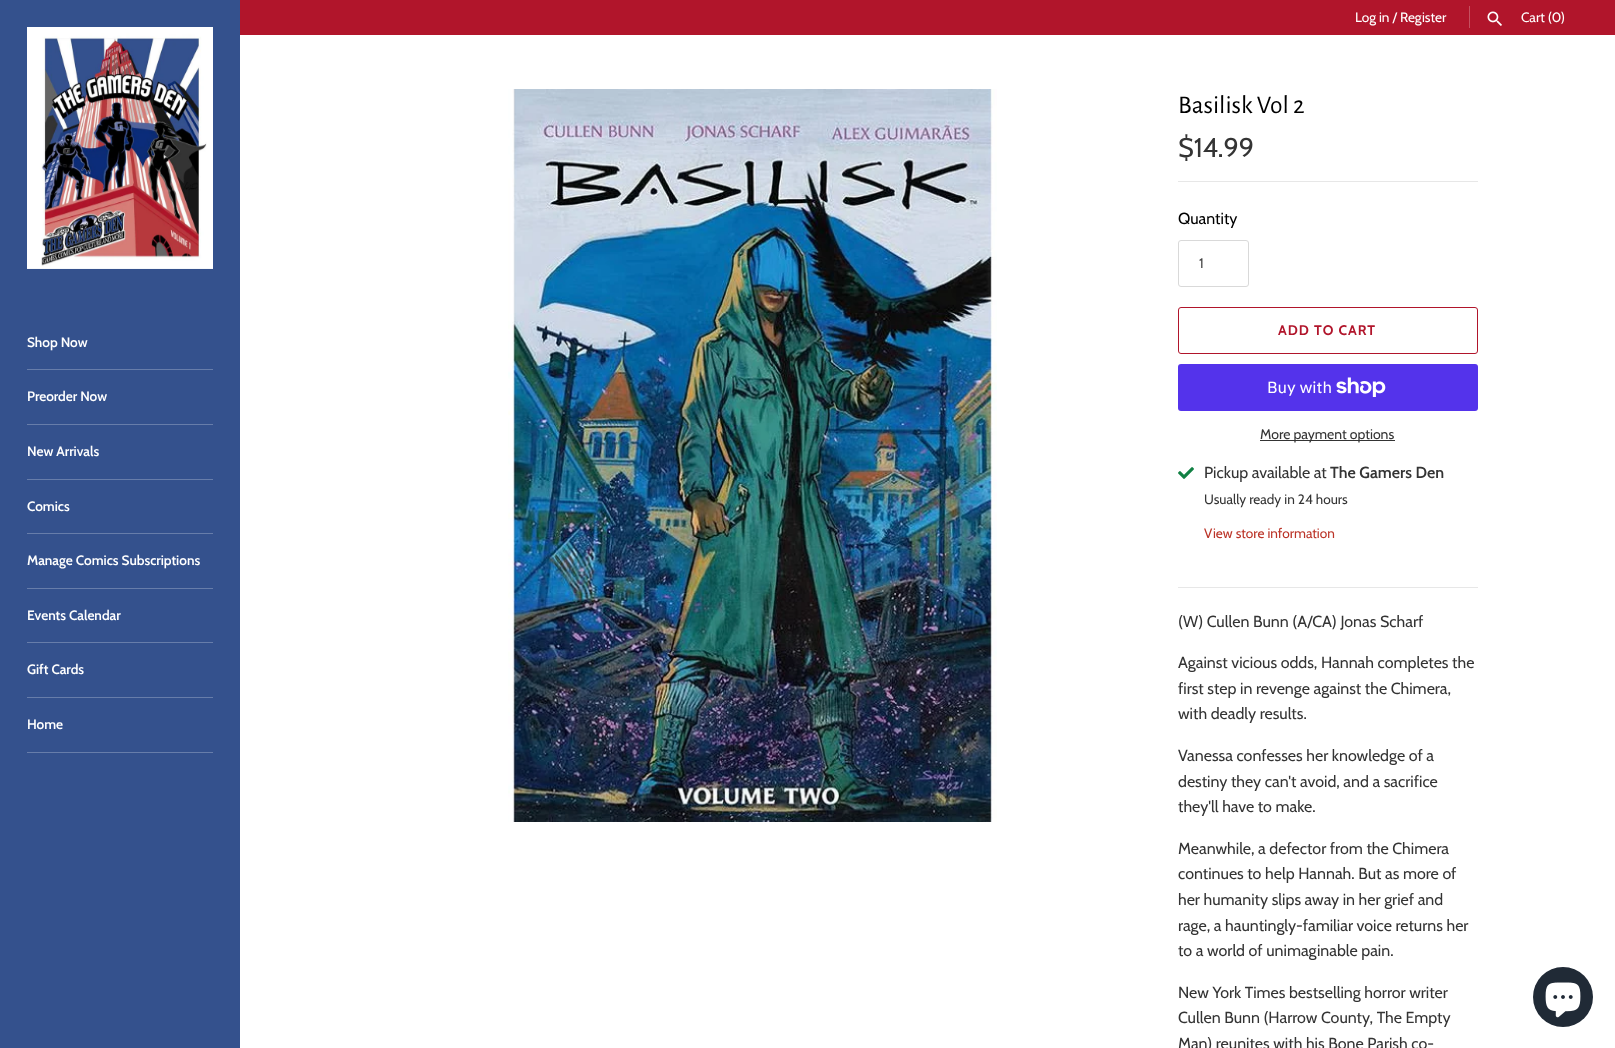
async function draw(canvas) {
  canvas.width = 1615;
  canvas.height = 1048;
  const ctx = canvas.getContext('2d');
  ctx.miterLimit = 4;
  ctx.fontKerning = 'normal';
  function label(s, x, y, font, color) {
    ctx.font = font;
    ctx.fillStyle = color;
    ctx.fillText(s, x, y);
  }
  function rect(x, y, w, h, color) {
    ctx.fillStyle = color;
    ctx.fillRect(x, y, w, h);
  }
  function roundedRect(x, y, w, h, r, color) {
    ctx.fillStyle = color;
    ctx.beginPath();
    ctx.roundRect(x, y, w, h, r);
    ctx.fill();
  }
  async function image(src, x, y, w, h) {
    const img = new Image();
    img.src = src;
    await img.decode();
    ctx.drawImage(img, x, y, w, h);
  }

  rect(0, 0, 1615, 1048, '#fff');
  rect(240, 0, 1375, 35, '#b1152b');
  label('Log in / Register', 1355, 22, '13.6px Cabin', '#fff');
  rect(1469, 6, 1, 22, '#c55060');
  await image('assets/img1.png', 1487, 11, 15, 15);
  label('Cart (0)', 1521, 22, '13.6px Cabin', '#fff');
  rect(0, 0, 240, 1048, '#34518d');
  await image('assets/img2.png', 27, 27, 186, 242);
  rect(27, 369, 186, 1, '#677daa');
  label('Shop Now', 27, 347, '600 13.6px Cabin', '#fff');
  rect(27, 424, 186, 1, '#677daa');
  label('Preorder Now', 27, 401, '600 13.6px Cabin', '#fff');
  rect(27, 479, 186, 1, '#677daa');
  label('New Arrivals', 27, 456, '600 13.6px Cabin', '#fff');
  rect(27, 533, 186, 1, '#677daa');
  label('Comics', 27, 511, '600 13.6px Cabin', '#fff');
  rect(27, 588, 186, 1, '#677daa');
  label('Manage Comics Subscriptions', 27, 565, '600 13.6px Cabin', '#fff');
  rect(27, 642, 186, 1, '#677daa');
  label('Events Calendar', 27, 620, '600 13.6px Cabin', '#fff');
  rect(27, 697, 186, 1, '#677daa');
  label('Gift Cards', 27, 674, '600 13.6px Cabin', '#fff');
  rect(27, 752, 186, 1, '#677daa');
  label('Home', 27, 729, '600 13.6px Cabin', '#fff');
  await image('assets/img3.png', 508, 89, 489, 733);
  label('Basilisk Vol 2', 1178, 113, '25.5px Alegreya Sans', '#000');
  label('$14.99', 1178, 157, '27px Cabin', '#343434');
  rect(1178, 181, 300, 1, '#e7e7e7');
  label('Quantity', 1178, 224, '16px Cabin', '#000');
  ctx.beginPath();
  ctx.roundRect(1178.5, 240.5, 70, 46, 2.5);
  ctx.strokeStyle = '#d9d9d9';
  ctx.stroke();
  label('1', 1199, 268, '14px Cabin', '#444');
  ctx.beginPath();
  ctx.roundRect(1178.5, 307.5, 299, 46, 2.5);
  ctx.strokeStyle = '#b1152b';
  ctx.stroke();
  ctx.letterSpacing = '1px';
  label('ADD TO CART', 1278, 335, 'bold 14px Cabin', '#b1152b');
  roundedRect(1178, 364, 300, 47, 3, '#5433eb');
  ctx.letterSpacing = '0px';
  label('Buy with', 1267, 393, '16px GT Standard', '#fff');
  await image('assets/img4.png', 1336, 377, 50, 20);
  rect(1260, 440, 135, 1, '#343434');
  label('More payment options', 1260, 439, '14px Cabin', '#343434');
  await image('assets/img5.png', 1178, 467, 16, 12);
  label('Pickup available at', 1204, 478, '16px Cabin', '#343434');
  label('The Gamers Den', 1330, 478, '600 16px Cabin', '#343434');
  label('Usually ready in 24 hours', 1204, 504, '13.6px Cabin', '#343434');
  label('View store information', 1204, 538, '13.6px Cabin', '#bb3428');
  rect(1178, 587, 300, 1, '#e7e7e7');
  label('(W) Cullen Bunn (A/CA) Jonas Scharf', 1178, 627, '16px Cabin', '#343434');
  label('Against vicious odds, Hannah completes the', 1178, 668, '16px Cabin', '#343434');
  label('first step in revenge against the Chimera,', 1178, 694, '16px Cabin', '#343434');
  label('with deadly results.', 1178, 719, '16px Cabin', '#343434');
  label('Vanessa confesses her knowledge of a', 1178, 761, '16px Cabin', '#343434');
  label('destiny they can\'t avoid, and a sacrifice', 1178, 787, '16px Cabin', '#343434');
  label('they\'ll have to make.', 1178, 812, '16px Cabin', '#343434');
  label('Meanwhile, a defector from the Chimera', 1178, 854, '16px Cabin', '#343434');
  label('continues to help Hannah. But as more of', 1178, 879, '16px Cabin', '#343434');
  label('her humanity slips away in her grief and', 1178, 905, '16px Cabin', '#343434');
  label('rage, a hauntingly-familiar voice returns her', 1178, 931, '16px Cabin', '#343434');
  label('to a world of unimaginable pain.', 1178, 956, '16px Cabin', '#343434');
  label('New York Times bestselling horror writer', 1178, 998, '16px Cabin', '#343434');
  label('Cullen Bunn (Harrow County, The Empty', 1178, 1023, '16px Cabin', '#343434');
  label('Man) reunites with his Bone Parish co-', 1178, 1049, '16px Cabin', '#343434');
  ctx.fillStyle = '#202a36';
  ctx.beginPath();
  ctx.arc(1563, 997, 30, 0, 2 * Math.PI);
  ctx.fill();
  await image('assets/img6.png', 1545, 982, 36, 36);
}

draw(document.querySelector('canvas'));
